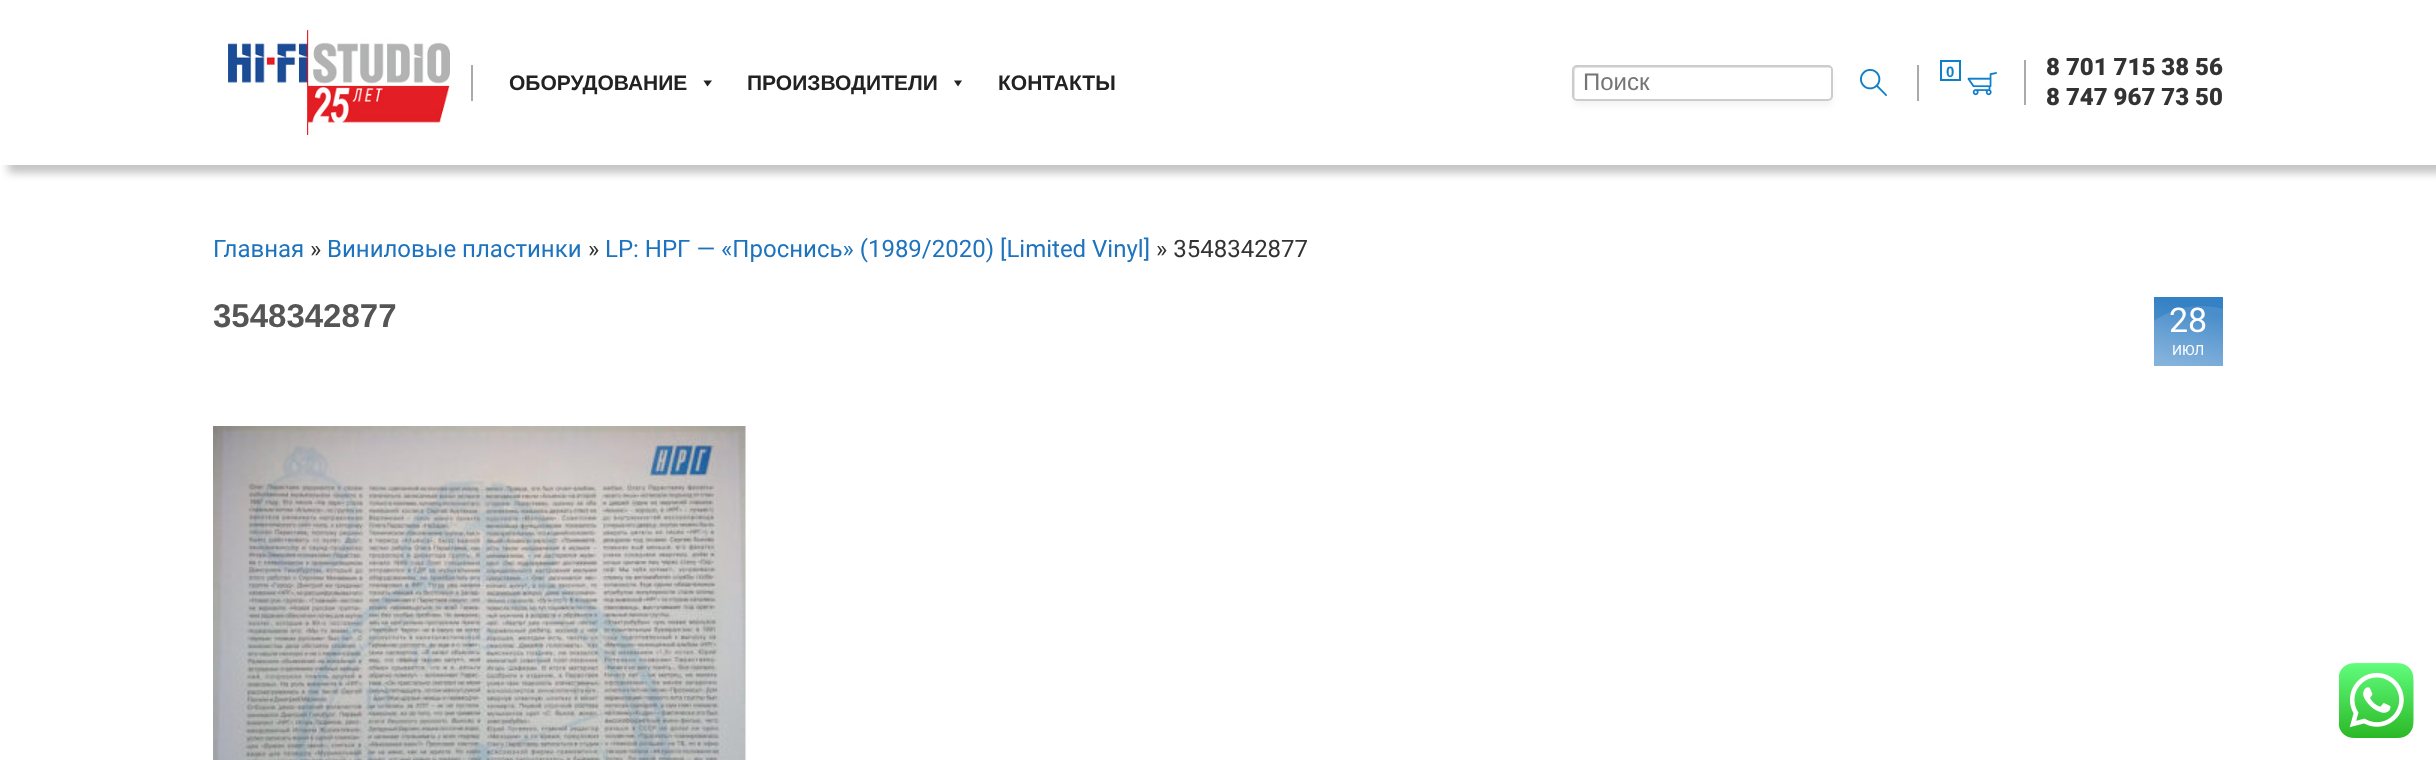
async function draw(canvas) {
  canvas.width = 2436;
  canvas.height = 760;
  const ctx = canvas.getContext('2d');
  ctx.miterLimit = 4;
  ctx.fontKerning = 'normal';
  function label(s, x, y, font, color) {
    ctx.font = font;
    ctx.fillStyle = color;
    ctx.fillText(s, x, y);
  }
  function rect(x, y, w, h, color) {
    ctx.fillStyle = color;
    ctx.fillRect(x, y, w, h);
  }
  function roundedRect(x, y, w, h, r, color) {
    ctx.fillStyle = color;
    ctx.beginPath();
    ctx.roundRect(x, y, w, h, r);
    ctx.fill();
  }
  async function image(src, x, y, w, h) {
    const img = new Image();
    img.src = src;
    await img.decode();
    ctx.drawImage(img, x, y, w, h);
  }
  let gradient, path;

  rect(0, 0, 2436, 760, '#fff');
  ctx.save();
  ctx.beginPath();
  ctx.rect(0, 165, 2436, 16);
  ctx.clip();
  ctx.fillStyle = '#c4c4c4';
  ctx.filter = 'blur(4px)';
  ctx.beginPath();
  ctx.rect(8, 8, 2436, 165);
  ctx.fill();
  ctx.filter = 'none';
  ctx.restore();
  await image('assets/img1.png', 228, 30, 222, 105);
  rect(471, 65, 2, 36, '#aaa');
  label('ОБОРУДОВАНИЕ', 509, 90, 'bold 21px Liberation Sans', '#222');
  path = new Path2D('M712 80.5L707.5 86.5L703.5 80.5Z');
  ctx.fill(path);
  label('ПРОИЗВОДИТЕЛИ', 747, 90, 'bold 21px Liberation Sans', '#222');
  path = new Path2D('M962 80.5L958 86.5L954 80.5Z');
  ctx.fill(path);
  label('КОНТАКТЫ', 998, 90, 'bold 21px Liberation Sans', '#222');
  ctx.fillStyle = '#0000000d';
  ctx.filter = 'blur(3px)';
  ctx.beginPath();
  ctx.roundRect(1574, 72, 258, 33, 3);
  ctx.fill();
  ctx.filter = 'none';
  roundedRect(1572, 65, 261, 36, 5, '#fff');
  ctx.fillStyle = '#e6e6e6';
  path = new Path2D('M1578 68H1830H1832C1832 67 1830 66 1829 66H1577C1575 66 1574 67 1574 69V96C1574 97 1574 98 1575 98V75C1575 72 1574 68 1578 68Z');
  ctx.fill(path);
  ctx.beginPath();
  ctx.roundRect(1573, 66, 259, 34, 4);
  ctx.strokeStyle = '#ccc';
  ctx.lineWidth = 2;
  ctx.stroke();
  label('Поиск', 1583, 90, '24px Liberation Sans', '#757575');
  await image('assets/img2.png', 1860, 69, 27, 28);
  rect(1917, 65, 2, 36, '#aaa');
  ctx.strokeStyle = '#107fc9';
  ctx.strokeRect(1941, 61, 19, 19);
  label('0', 1946, 77, 'bold 15px Liberation Sans', '#107fc9');
  await image('assets/img3.png', 1967, 72, 30, 24);
  rect(2024, 60, 2, 45, '#aaa');
  label('8 701 715 38 56', 2046, 75, '900 24px Roboto', '#333');
  label('8 747 967 73 50', 2046, 105, '900 24px Roboto', '#333');
  label('Главная', 213, 257, '24px Roboto', '#1e73be');
  label('»', 310, 257, '24px Roboto', '#333');
  label('Виниловые пластинки', 327, 257, '24px Roboto', '#1e73be');
  label('»', 588, 257, '24px Roboto', '#333');
  label('LP: НРГ — «Проснись» (1989/2020) [Limited Vinyl]', 605, 257, '24px Roboto', '#1e73be');
  label('» 3548342877', 1156, 257, '24px Roboto', '#333');
  label('3548342877', 213, 327, 'bold 33px Liberation Sans', '#555');
  gradient = ctx.createLinearGradient(2168, 362, 2185, 305);
  gradient.addColorStop(0, '#629dd2');
  gradient.addColorStop(1, '#3581c5');
  ctx.fillStyle = gradient;
  ctx.fillRect(2154, 297, 69, 69);
  gradient = ctx.createLinearGradient(2181, 382, 2190, 313);
  gradient.addColorStop(0, '#ffffff40');
  gradient.addColorStop(1, '#ffffff1a');
  ctx.fillStyle = gradient;
  path = new Path2D('M2201 306C2209 306 2216 307 2223 309V366H2154V321C2167 312 2183 306 2201 306Z');
  ctx.fill(path, 'evenodd');
  label('28', 2169, 332, '34px Roboto', '#fff');
  label('ИЮЛ', 2172, 355, '14px Roboto', '#fff');
  await image('assets/img4.png', 213, 426, 533, 334);
  await image('assets/img5.png', 2339, 663, 75, 75);
}

draw(document.querySelector('canvas'));
